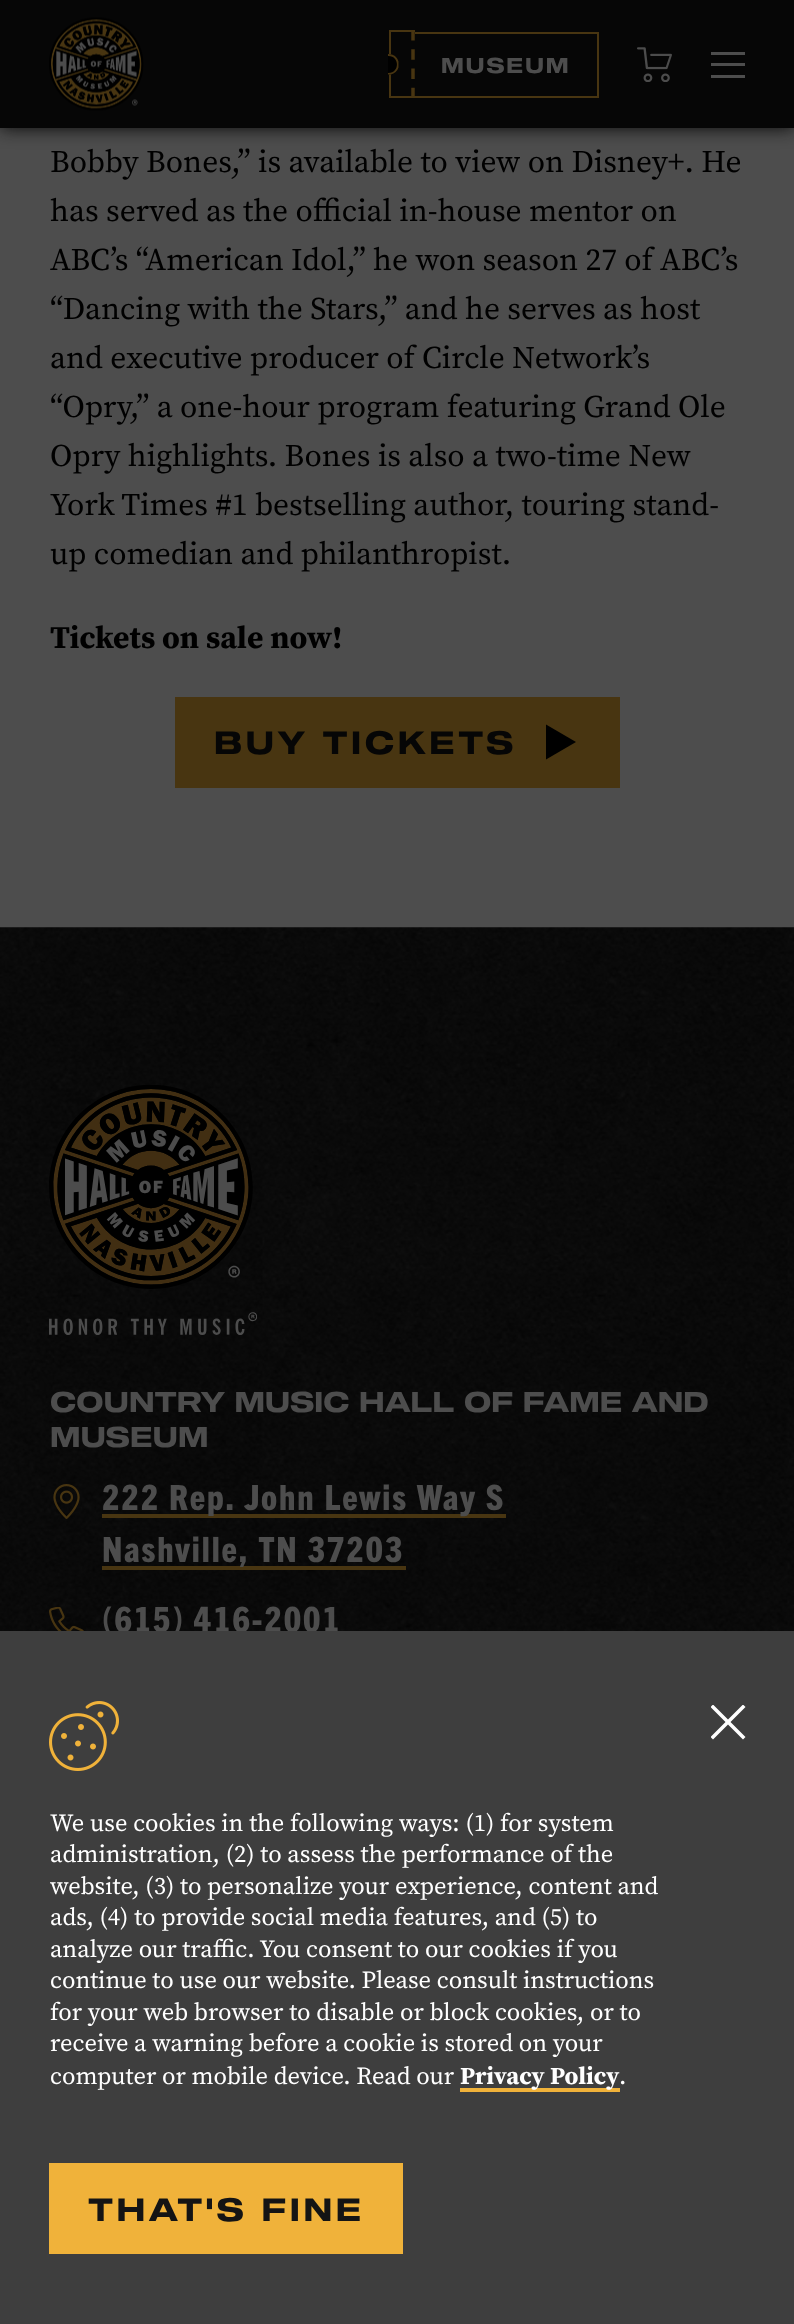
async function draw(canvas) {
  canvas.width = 794;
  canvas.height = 2324;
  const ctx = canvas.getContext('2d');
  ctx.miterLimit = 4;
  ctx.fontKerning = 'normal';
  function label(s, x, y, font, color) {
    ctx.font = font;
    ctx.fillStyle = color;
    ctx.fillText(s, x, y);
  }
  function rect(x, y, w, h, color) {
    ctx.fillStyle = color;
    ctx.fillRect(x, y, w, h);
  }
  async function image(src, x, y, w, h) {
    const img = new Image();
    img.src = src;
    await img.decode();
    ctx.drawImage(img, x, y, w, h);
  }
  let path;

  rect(0, 0, 794, 2324, '#4d4d4d');
  ctx.fillStyle = '#060606';
  ctx.filter = 'blur(9px)';
  ctx.beginPath();
  ctx.rect(0, 0, 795, 128);
  ctx.fill();
  ctx.filter = 'none';
  rect(0, 0, 794, 128, '#060606');
  await image('assets/img1.png', 49, 17, 95, 94);
  rect(415, 32, 184, 2, '#483511');
  rect(597, 32, 2, 66, '#483511');
  rect(415, 96, 184, 2, '#483511');
  rect(389, 30, 26, 2, '#483511');
  path = new Path2D('M413 30V98');
  ctx.strokeStyle = '#483511';
  ctx.lineWidth = 3.5;
  ctx.setLineDash([10.5, 8.75]);
  ctx.stroke(path);
  rect(389, 96, 26, 2, '#483511');
  rect(389, 30, 2, 68, '#483511');
  ctx.fillStyle = '#000';
  path = new Path2D('M388.5 54C393.5 54 397.5 57 398.5 61.5V67.5C397.5 71 394.5 73.5 391 74.5H388V54Z');
  ctx.fill(path);
  ctx.fillStyle = '#483511';
  path = new Path2D('M388.5 54C393.5 54 397.5 57 398.5 61.5V67.5C397.5 71 394.5 73.5 391 74.5H388V73C400 73.5 400 55.5 388 56V54Z');
  ctx.fill(path);
  ctx.letterSpacing = '1.75px';
  label('MUSEUM', 441, 73, '300 21px "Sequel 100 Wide"', '#4d4d4d');
  await image('assets/img2.png', 637, 47, 35, 35);
  rect(711, 52, 34, 3, '#4d4d4d');
  rect(711, 63, 34, 3, '#4d4d4d');
  rect(711, 75, 34, 3, '#4d4d4d');
  ctx.letterSpacing = '0px';
  label('Bobby Bones,” is available to view on Disney+. He', 50, 172, '31.5px Source Serif Pro', '#000');
  label('has served as the official in-house mentor on', 50, 221, '31.5px Source Serif Pro', '#000');
  label('ABC’s “American Idol,” he won season 27 of ABC’s', 50, 270, '31.5px Source Serif Pro', '#000');
  label('“Dancing with the Stars,” and he serves as host', 50, 319, '31.5px Source Serif Pro', '#000');
  label('and executive producer of Circle Network’s', 50, 368, '31.5px Source Serif Pro', '#000');
  label('“Opry,” a one-hour program featuring Grand Ole', 50, 417, '31.5px Source Serif Pro', '#000');
  label('Opry highlights. Bones is also a two-time New', 50, 466, '31.5px Source Serif Pro', '#000');
  label('York Times #1 bestselling author, touring stand-', 50, 515, '31.5px Source Serif Pro', '#000');
  label('up comedian and philanthropist.', 50, 564, '31.5px Source Serif Pro', '#000');
  label('Tickets on sale now!', 50, 648, 'bold 31.5px Source Serif Pro', '#000');
  rect(175, 697, 445, 91, '#483511');
  ctx.letterSpacing = '3.5px';
  label('BUY TICKETS', 214, 754, '300 31.5px "Sequel 100 Wide"', '#060606');
  ctx.fillStyle = '#000';
  path = new Path2D('M576 742L546 759.5V724.5Z');
  ctx.fill(path);
  await image('assets/img3.png', 0, 927, 794, 704);
  await image('assets/img4.png', 49, 1085, 208, 250);
  ctx.letterSpacing = '0px';
  label('COUNTRY MUSIC HALL OF FAME AND', 50, 1412, '300 28px "Sequel 100 Wide"', '#4d4d4d');
  label('MUSEUM', 50, 1447, '300 28px "Sequel 100 Wide"', '#4d4d4d');
  await image('assets/img5.png', 53, 1484, 27, 35);
  rect(102, 1514, 404, 4, '#483511');
  ctx.letterSpacing = '1.9px';
  label('222 Rep. John Lewis Way S', 102, 1510, '800 35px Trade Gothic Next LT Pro', '#4d4d4d');
  rect(102, 1566, 304, 4, '#483511');
  label('Nashville, TN 37203', 102, 1562, '800 35px Trade Gothic Next LT Pro', '#4d4d4d');
  await image('assets/img6.png', 49, 1607, 35, 24);
  label('(615) 416-2001', 102, 1632, '800 35px Trade Gothic Next LT Pro', '#4d4d4d');
  rect(0, 1631, 794, 693, '#3e3e3e');
  ctx.save();
  ctx.beginPath();
  ctx.rect(711, 1705, 35, 35);
  ctx.clip();
  ctx.fillStyle = '#fff';
  path = new Path2D('M743 1704.5L728 1719.5L713 1704.5L710.5 1707L725.5 1722L710.5 1737L713 1739.5L728 1724.5L743 1739.5L745.5 1737L730.5 1722L745.5 1707Z');
  ctx.fill(path);
  ctx.restore();
  await image('assets/img7.png', 49, 1701, 70, 70);
  ctx.letterSpacing = '0px';
  label('We use cookies in the following ways: (1) for system', 50, 1831, '24.5px Source Serif Pro', '#fff');
  label('administration, (2) to assess the performance of the', 50, 1862, '24.5px Source Serif Pro', '#fff');
  label('website, (3) to personalize your experience, content and', 50, 1894, '24.5px Source Serif Pro', '#fff');
  label('ads, (4) to provide social media features, and (5) to', 50, 1925, '24.5px Source Serif Pro', '#fff');
  label('analyze our traffic. You consent to our cookies if you', 50, 1957, '24.5px Source Serif Pro', '#fff');
  label('continue to use our website. Please consult instructions', 50, 1988, '24.5px Source Serif Pro', '#fff');
  label('for your web browser to disable or block cookies, or to', 50, 2020, '24.5px Source Serif Pro', '#fff');
  label('receive a warning before a cookie is stored on your', 50, 2051, '24.5px Source Serif Pro', '#fff');
  label('computer or mobile device. Read our', 50, 2084, '24.5px Source Serif Pro', '#fff');
  rect(460, 2088, 160, 4, '#f0b23a');
  label('Privacy Policy', 460, 2084, 'bold 24.5px Source Serif Pro', '#fff');
  label('.', 619, 2084, '24.5px Source Serif Pro', '#fff');
  rect(49, 2163, 354, 91, '#f0b23a');
  ctx.letterSpacing = '3.5px';
  label('THAT\'S FINE', 88, 2221, '300 31.5px "Sequel 100 Wide"', '#141414');
}

draw(document.querySelector('canvas'));
